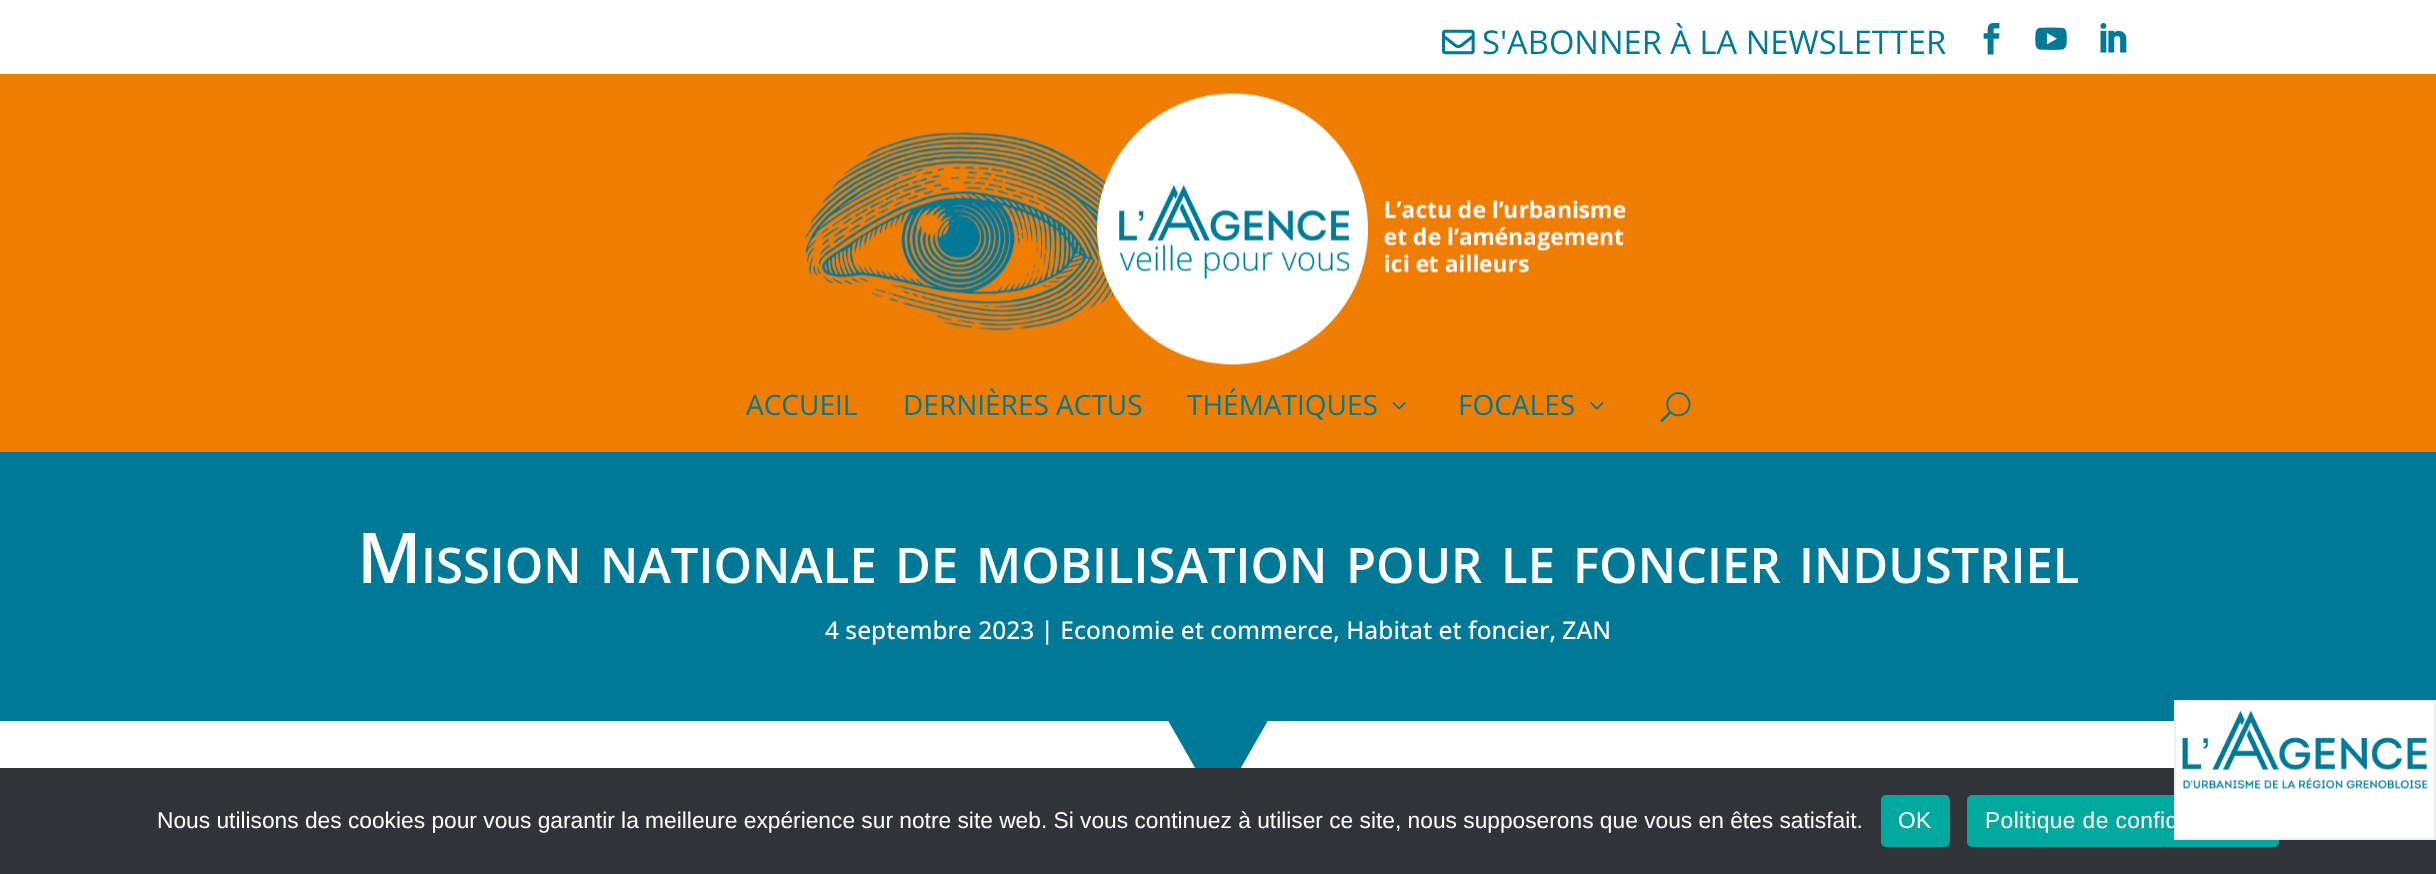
async function draw(canvas) {
  canvas.width = 2436;
  canvas.height = 874;
  const ctx = canvas.getContext('2d');
  ctx.miterLimit = 4;
  ctx.fontKerning = 'normal';
  function label(s, x, y, font, color) {
    ctx.font = font;
    ctx.fillStyle = color;
    ctx.fillText(s, x, y);
  }
  function rect(x, y, w, h, color) {
    ctx.fillStyle = color;
    ctx.fillRect(x, y, w, h);
  }
  function roundedRect(x, y, w, h, r, color) {
    ctx.fillStyle = color;
    ctx.beginPath();
    ctx.roundRect(x, y, w, h, r);
    ctx.fill();
  }
  async function image(src, x, y, w, h) {
    const img = new Image();
    img.src = src;
    await img.decode();
    ctx.drawImage(img, x, y, w, h);
  }
  let path;

  rect(0, 0, 2436, 874, '#fff');
  await image('assets/img1.png', 1442, 29, 33, 26);
  label('S\'ABONNER À LA NEWSLETTER', 1482, 54, '32.7px Open Sans', '#007996');
  await image('assets/img2.png', 1983, 23, 17, 32);
  await image('assets/img3.png', 2035, 27, 32, 23);
  await image('assets/img4.png', 2100, 23, 27, 30);
  rect(0, 74, 2436, 378, '#ef7d00');
  await image('assets/img5.png', 805, 93, 821, 272);
  label('ACCUEIL', 746, 415, '28px Open Sans', '#007996');
  label('DERNIÈRES ACTUS', 903, 415, '28px Open Sans', '#007996');
  label('THÉMATIQUES', 1187, 415, '28px Open Sans', '#007996');
  await image('assets/img6.png', 1392, 402, 14, 8);
  label('FOCALES', 1458, 415, '28px Open Sans', '#007996');
  await image('assets/img7.png', 1590, 402, 14, 8);
  await image('assets/img8.png', 1660, 392, 31, 30);
  rect(0, 452, 2436, 269, '#007996');
  label('M', 357, 583, '600 70px Open Sans', '#fff');
  label('ISSION', 421, 583, '600 49px Open Sans', '#fff');
  label('NATIONALE', 600, 583, '600 49px Open Sans', '#fff');
  label('DE', 895, 583, '600 49px Open Sans', '#fff');
  label('MOBILISATION', 976, 583, '600 49px Open Sans', '#fff');
  label('POUR', 1346, 583, '600 49px Open Sans', '#fff');
  label('LE', 1501, 583, '600 49px Open Sans', '#fff');
  label('FONCIER', 1573, 583, '600 49px Open Sans', '#fff');
  label('INDUSTRIEL', 1799, 583, '600 49px Open Sans', '#fff');
  label('4 septembre 2023 | Economie et commerce, Habitat et foncier, ZAN', 825, 639, '500 24.5px Open Sans', '#fff');
  ctx.save();
  ctx.beginPath();
  ctx.rect(0, 721, 2436, 88);
  ctx.clip();
  ctx.fillStyle = '#007996';
  path = new Path2D('M1218 808L0-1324H2436Z');
  ctx.fill(path);
  ctx.restore();
  rect(0, 768, 2436, 106, '#32323a');
  label('Nous utilisons des cookies pour vous garantir la meilleure expérience sur notre site web. Si vous continuez à utiliser ce site, nous supposerons que vous en êtes satisfait.', 157, 828, '22.75px Liberation Sans', '#fff');
  roundedRect(1881, 795, 69, 52, 5, '#00a99d');
  ctx.letterSpacing = '0.4px';
  label('OK', 1898, 828, '22.75px Liberation Sans', '#fff');
  roundedRect(1967, 795, 312, 52, 5, '#00a99d');
  label('Politique de confid', 1985, 828, '22.75px Liberation Sans', '#fff');
  ctx.beginPath();
  ctx.rect(2175, 701, 260, 138);
  ctx.fill();
  ctx.strokeStyle = '#eee';
  ctx.lineWidth = 2;
  ctx.stroke();
  await image('assets/img9.png', 2182, 710, 246, 79);
}

draw(document.querySelector('canvas'));
